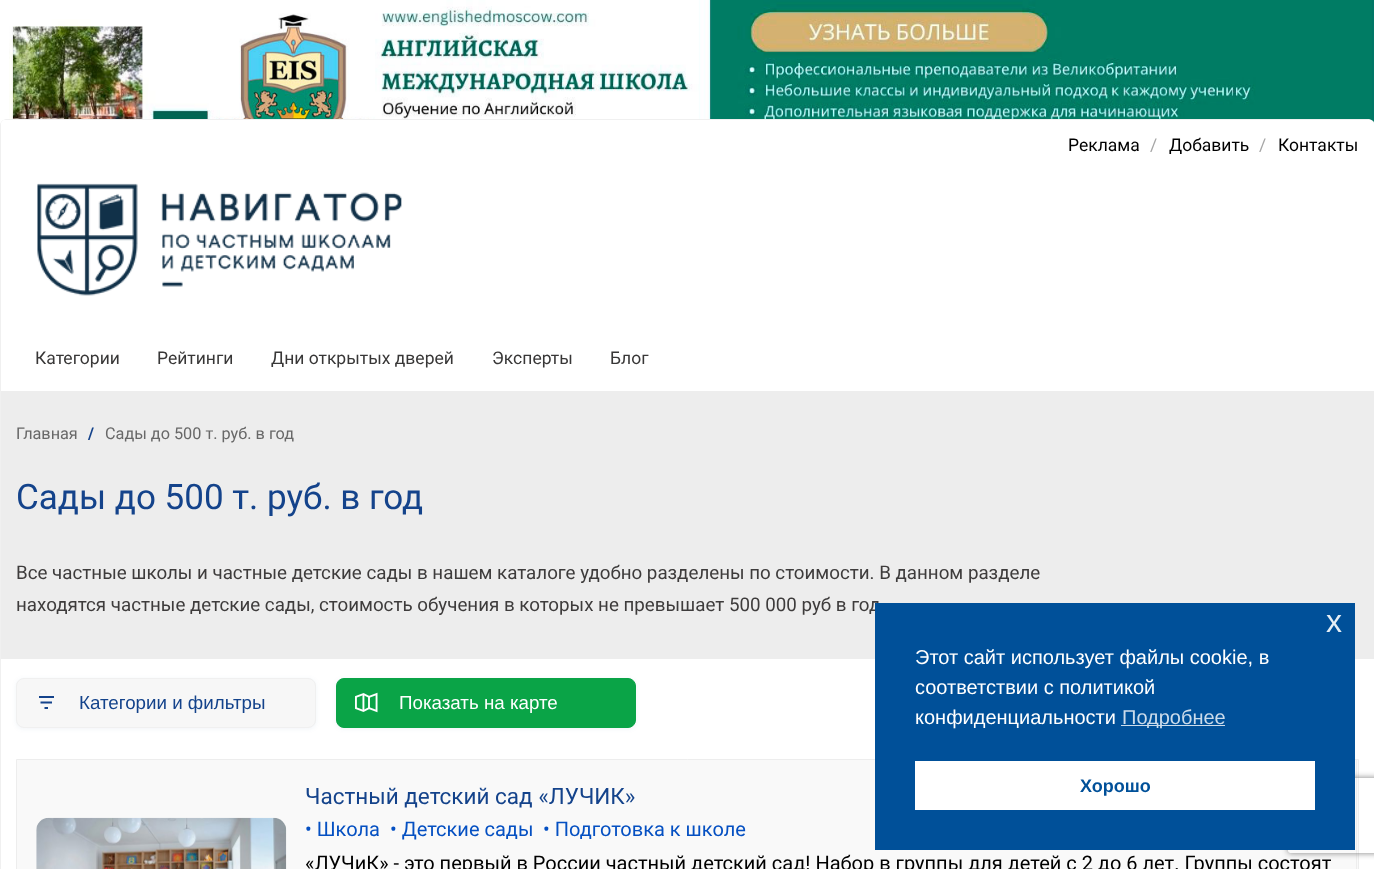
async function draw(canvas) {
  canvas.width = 1374;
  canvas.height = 869;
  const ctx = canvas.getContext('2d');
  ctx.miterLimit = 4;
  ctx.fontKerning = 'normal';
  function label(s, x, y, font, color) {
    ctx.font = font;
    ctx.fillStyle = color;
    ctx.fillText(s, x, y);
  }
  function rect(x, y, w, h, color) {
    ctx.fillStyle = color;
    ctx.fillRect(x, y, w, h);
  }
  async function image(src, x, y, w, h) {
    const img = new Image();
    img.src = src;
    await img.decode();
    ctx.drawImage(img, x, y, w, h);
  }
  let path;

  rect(0, 0, 1374, 869, '#fff');
  await image('assets/img1.png', 9, 0, 1365, 125);
  path = new Path2D('M6 120H1369C1372 120 1374 122 1374 125V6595C1374 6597 1372 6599 1369 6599H6C3 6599 1 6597 1 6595V125C1 122 3 120 6 120Z');
  ctx.fill(path);
  ctx.fillStyle = '#f0f0f0';
  path = new Path2D('M6 119C5 119 3 120 2 121H3C3 120 5 120 6 120H1369C1370 120 1372 120 1372 121H1373C1372 120 1370 119 1369 119Z');
  ctx.fill(path);
  path = new Path2D('M1373 121C1374 122 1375 123 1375 125V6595C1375 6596 1374 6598 1374 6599L1373 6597L1374 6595V125C1374 123 1373 122 1372 121Z');
  ctx.fill(path);
  path = new Path2D('M0 125V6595L1 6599L2 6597L1 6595V125C1 123 2 122 3 121H2C1 122 0 123 0 125Z');
  ctx.fill(path);
  ctx.fillStyle = '#fff';
  path = new Path2D('M6 120H1369C1372 120 1374 122 1374 125V391H1V125C1 122 3 120 6 120Z');
  ctx.fill(path);
  path = new Path2D('M6 120H1369C1372 120 1374 122 1374 125V170H1V125C1 122 3 120 6 120Z');
  ctx.fill(path);
  label('Реклама', 1068, 151, '17.5px Roboto', '#000');
  label('/', 1150, 151, '17.5px Roboto', '#a6a6a6');
  label('Добавить', 1169, 151, '17.5px Roboto', '#000');
  label('/', 1259, 151, '17.5px Roboto', '#a6a6a6');
  label('Контакты', 1278, 151, '17.5px Roboto', '#000');
  await image('assets/img2.png', 37, 183, 365, 113);
  label('Категории', 35, 364, '17.5px Roboto', '#383737');
  label('Рейтинги', 157, 364, '17.5px Roboto', '#383737');
  label('Дни открытых дверей', 271, 364, '17.5px Roboto', '#383737');
  label('Эксперты', 492, 364, '17.5px Roboto', '#383737');
  label('Блог', 610, 364, '17.5px Roboto', '#383737');
  rect(1, 391, 1373, 268, '#ededed');
  label('Главная', 16, 439, '16.25px Roboto', '#686868');
  label('/', 88, 439, 'bold 16.25px Roboto', '#14438b');
  label('Сады до 500 т. руб. в год', 105, 439, '16.25px Roboto', '#686868');
  label('Сады до 500 т. руб. в год', 16, 509, '35px Roboto', '#14438b');
  label('Все частные школы и частные детские сады в нашем каталоге удобно разделены по стоимости. В данном разделе', 16, 579, '18.75px Roboto', '#3e3c3c');
  label('находятся частные детские сады, стоимость обучения в которых не превышает 500 000 руб в год', 16, 611, '18.75px Roboto', '#3e3c3c');
  ctx.fillStyle = '#14438b0f';
  ctx.filter = 'blur(2.5px)';
  ctx.beginPath();
  ctx.roundRect(16, 679, 300, 50, 8);
  ctx.fill();
  ctx.filter = 'none';
  ctx.fillStyle = '#f7f7f7';
  ctx.beginPath();
  ctx.roundRect(16.5, 678.5, 299, 49, 7.5);
  ctx.fill();
  ctx.strokeStyle = '#f0f0f0';
  ctx.stroke();
  path = new Path2D('M39 697H54M40.5 702.5H52M44.5 708H48');
  ctx.strokeStyle = '#14438b';
  ctx.lineWidth = 1.9;
  ctx.stroke(path);
  label('Категории и фильтры', 79, 709, '18.75px Liberation Sans', '#14438b');
  ctx.fillStyle = '#14438b0f';
  ctx.filter = 'blur(2.5px)';
  ctx.beginPath();
  ctx.roundRect(336, 679, 300, 50, 8);
  ctx.fill();
  ctx.filter = 'none';
  ctx.fillStyle = '#0aa447';
  ctx.beginPath();
  ctx.roundRect(336.5, 678.5, 299, 49, 7.5);
  ctx.fill();
  ctx.strokeStyle = '#0aa447';
  ctx.lineWidth = 1;
  ctx.stroke();
  await image('assets/img3.png', 355, 692, 23, 21);
  label('Показать на карте', 399, 709, '18.75px Liberation Sans', '#fff');
  ctx.fillStyle = '#f9f9f9';
  ctx.beginPath();
  ctx.rect(16.5, 759.5, 1342, 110);
  ctx.fill();
  ctx.strokeStyle = '#ededed';
  ctx.stroke();
  await image('assets/img4.png', 36, 817, 251, 52);
  rect(1356, 760, 1, 109, '#ededed');
  label('Частный детский сад «ЛУЧИК»', 305, 804, '22.5px Roboto', '#14438b');
  label('• Школа', 305, 836, '20px Roboto', '#0550c2');
  label('• Детские сады', 390, 836, '20px Roboto', '#0550c2');
  label('• Подготовка к школе', 543, 836, '20px Roboto', '#0550c2');
  label('«ЛУЧиК» - это первый в России частный детский сад! Набор в группы для детей с 2 до 6 лет. Группы состоят', 305, 870, '20px Roboto', '#000');
  ctx.save();
  path = new Path2D('M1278 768H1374V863H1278ZM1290.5 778H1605.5C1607 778 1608 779 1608 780.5V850.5C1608 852 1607 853 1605.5 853H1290.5C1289 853 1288 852 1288 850.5V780.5C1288 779 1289 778 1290.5 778Z');
  ctx.clip(path, 'evenodd');
  ctx.fillStyle = '#808080';
  ctx.filter = 'blur(3px)';
  ctx.beginPath();
  ctx.roundRect(1288, 778, 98, 75, 2.5);
  ctx.fill();
  ctx.filter = 'none';
  ctx.restore();
  rect(875, 603, 480, 247, '#005099');
  label('x', 1326, 632, '32px Liberation Sans', '#e6eef5');
  label('Этот сайт использует файлы cookie, в', 915, 664, '20px Liberation Sans', '#fff');
  label('соответствии с политикой', 915, 694, '20px Liberation Sans', '#fff');
  label('конфиденциальности', 915, 724, '20px Liberation Sans', '#fff');
  rect(1121, 725, 104, 1, '#ccdceb');
  label('Подробнее', 1122, 724, '20px Liberation Sans', '#ccdceb');
  rect(915, 761, 400, 49, '#fff');
  label('Хорошо', 1080, 792, 'bold 18px Liberation Sans', '#005099');
}

draw(document.querySelector('canvas'));
